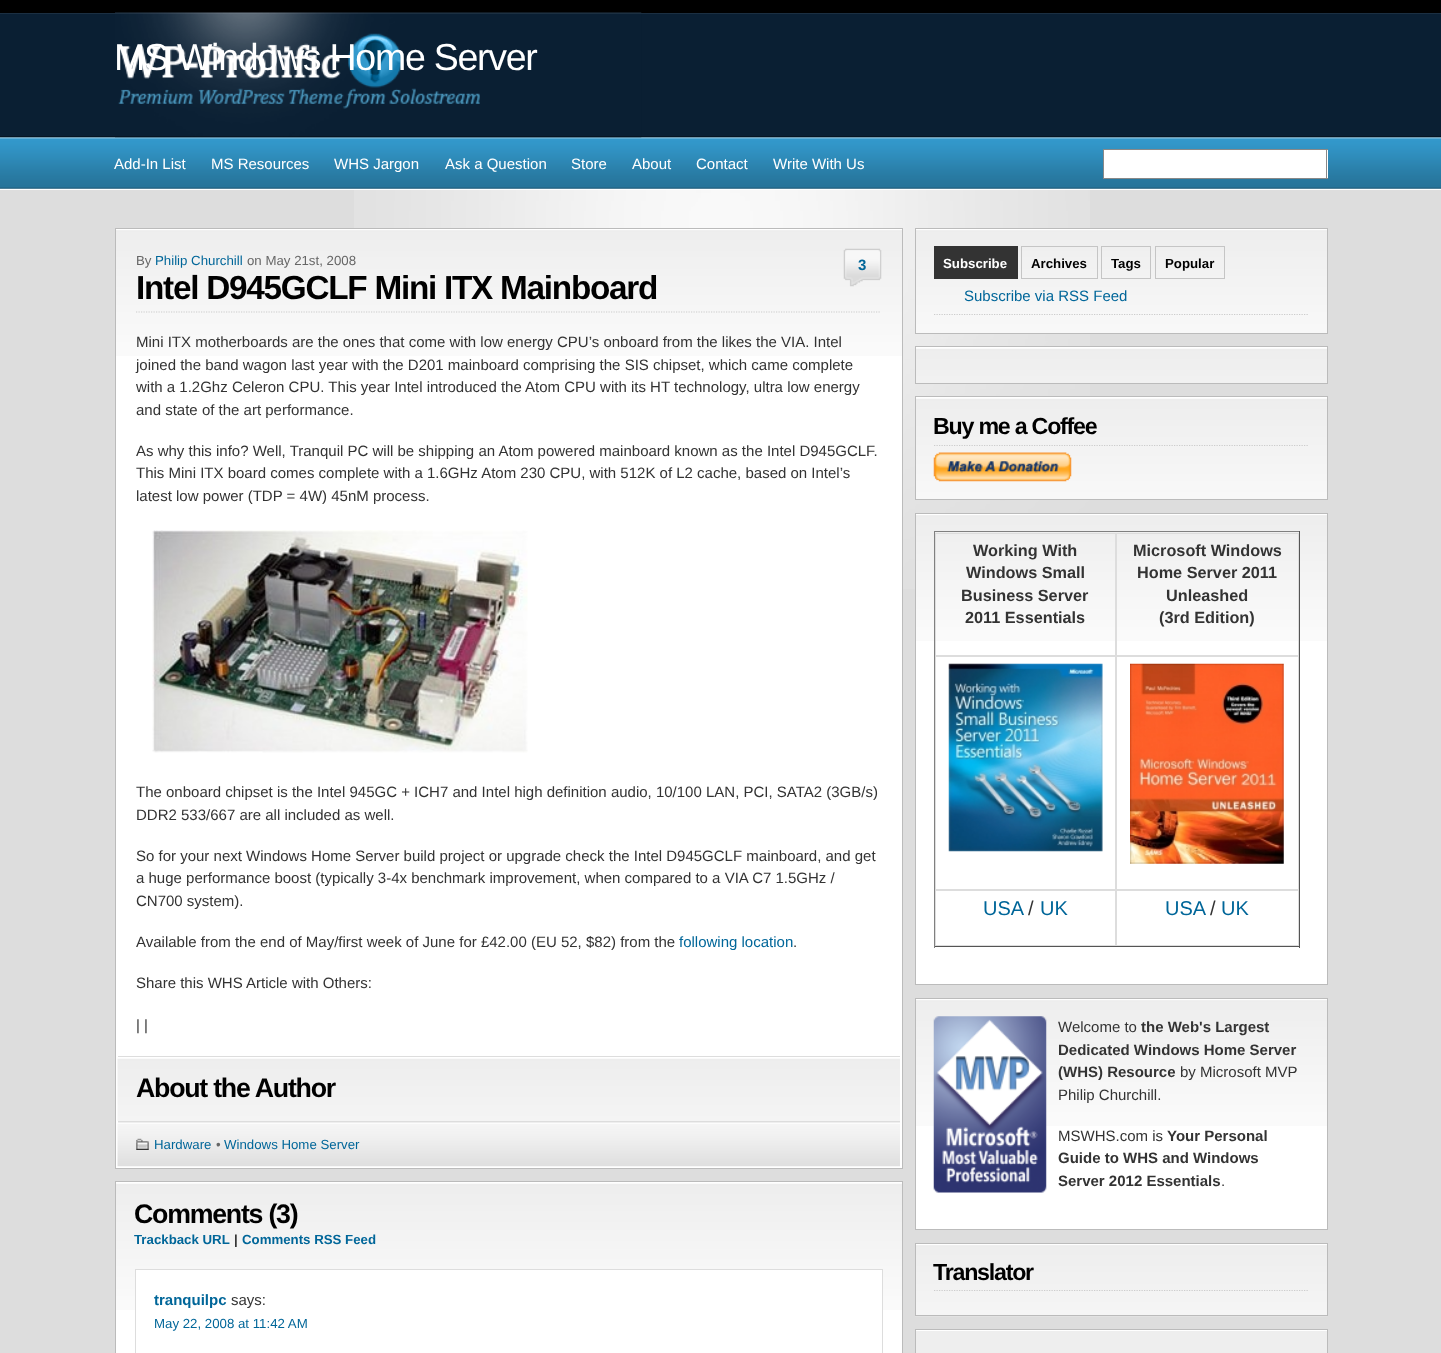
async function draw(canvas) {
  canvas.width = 1441;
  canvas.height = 1353;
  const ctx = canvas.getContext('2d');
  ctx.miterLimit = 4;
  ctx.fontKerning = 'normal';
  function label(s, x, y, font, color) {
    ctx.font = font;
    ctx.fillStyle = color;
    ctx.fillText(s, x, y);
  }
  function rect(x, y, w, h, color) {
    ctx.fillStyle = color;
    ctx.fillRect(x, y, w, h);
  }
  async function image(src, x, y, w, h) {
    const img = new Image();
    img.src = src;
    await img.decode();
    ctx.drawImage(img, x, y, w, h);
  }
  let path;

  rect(0, 0, 1441, 1353, '#ddd');
  await image('assets/img1.png', 0, 13, 1441, 125);
  rect(0, 0, 1441, 13, '#000');
  await image('assets/img2.png', 115, 12, 527, 126);
  ctx.letterSpacing = '-1.25px';
  label('MS Windows Home Server', 114, 70, '37.5px Liberation Sans', '#fff');
  await image('assets/img3.png', 0, 137, 1441, 52);
  ctx.letterSpacing = '0px';
  label('Add-In List', 114, 169, '15px Liberation Sans', '#fff');
  label('MS Resources', 211, 169, '15px Liberation Sans', '#fff');
  label('WHS Jargon', 334, 169, '15px Liberation Sans', '#fff');
  label('Ask a Question', 445, 169, '15px Liberation Sans', '#fff');
  label('Store', 571, 169, '15px Liberation Sans', '#fff');
  label('About', 632, 169, '15px Liberation Sans', '#fff');
  label('Contact', 696, 169, '15px Liberation Sans', '#fff');
  label('Write With Us', 773, 169, '15px Liberation Sans', '#fff');
  rect(1104, 150, 224, 28, '#fff');
  rect(1103, 149, 225, 1, '#888');
  rect(1103, 178, 197, 1, '#888');
  rect(1103, 149, 1, 30, '#888');
  rect(1326, 149, 1, 30, '#888');
  rect(1300, 178, 28, 1, '#888');
  await image('assets/img4.png', 354, 190, 736, 399);
  rect(0, 189, 1441, 1, '#fff');
  rect(116, 229, 786, 939, '#fff');
  await image('assets/img5.png', 116, 230, 786, 126);
  ctx.strokeStyle = '#bbb';
  ctx.strokeRect(115.5, 228.5, 787, 940);
  label('By', 136, 265, '13.25px Liberation Sans', '#666');
  label('Philip Churchill', 155, 265, '13.25px Liberation Sans', '#069');
  label('on May 21st, 2008', 247, 265, '13.25px Liberation Sans', '#666');
  await image('assets/img6.png', 843, 248, 39, 39);
  label('3', 858, 270, 'bold 15px Liberation Sans', '#069');
  path = new Path2D('M136 312H881');
  ctx.strokeStyle = '#ccc';
  ctx.lineWidth = 1.2;
  ctx.setLineDash([1.25, 1.25]);
  ctx.stroke(path);
  ctx.letterSpacing = '-1.25px';
  label('Intel D945GCLF Mini ITX Mainboard', 136, 299, 'bold 33.3px Liberation Sans', '#000');
  ctx.letterSpacing = '0px';
  label('Mini ITX motherboards are the ones that come with low energy CPU’s onboard from the likes the VIA. Intel', 136, 347, '15px Liberation Sans', '#333');
  label('joined the band wagon last year with the D201 mainboard comprising the SIS chipset, which came complete', 136, 370, '15px Liberation Sans', '#333');
  label('with a 1.2Ghz Celeron CPU. This year Intel introduced the Atom CPU with its HT technology, ultra low energy', 136, 392, '15px Liberation Sans', '#333');
  label('and state of the art performance.', 136, 415, '15px Liberation Sans', '#333');
  label('As why this info? Well, Tranquil PC will be shipping an Atom powered mainboard known as the Intel D945GCLF.', 136, 456, '15px Liberation Sans', '#333');
  label('This Mini ITX board comes complete with a 1.6GHz Atom 230 CPU, with 512K of L2 cache, based on Intel’s', 136, 478, '15px Liberation Sans', '#333');
  label('latest low power (TDP = 4W) 45nM process.', 136, 501, '15px Liberation Sans', '#333');
  await image('assets/img7.png', 152, 530, 376, 223);
  label('The onboard chipset is the Intel 945GC + ICH7 and Intel high definition audio, 10/100 LAN, PCI, SATA2 (3GB/s)', 136, 797, '15px Liberation Sans', '#333');
  label('DDR2 533/667 are all included as well.', 136, 820, '15px Liberation Sans', '#333');
  label('So for your next Windows Home Server build project or upgrade check the Intel D945GCLF mainboard, and get', 136, 861, '15px Liberation Sans', '#333');
  label('a huge performance boost (typically 3-4x benchmark improvement, when compared to a VIA C7 1.5GHz /', 136, 883, '15px Liberation Sans', '#333');
  label('CN700 system).', 136, 906, '15px Liberation Sans', '#333');
  label('Available from the end of May/first week of June for £42.00 (EU 52, $82) from the', 136, 947, '15px Liberation Sans', '#333');
  label('following location', 679, 947, '15px Liberation Sans', '#069');
  label('.', 793, 947, '15px Liberation Sans', '#333');
  label('Share this WHS Article with Others:', 136, 988, '15px Liberation Sans', '#333');
  label('| |', 136, 1030, '15px Liberation Sans', '#333');
  await image('assets/img8.png', 117, 1058, 783, 63);
  rect(118, 1056, 782, 1, '#ddd');
  ctx.letterSpacing = '-1.25px';
  label('About the Author', 136, 1097, 'bold 26.75px Liberation Sans', '#000');
  rect(118, 1121, 782, 2, '#ddd');
  await image('assets/img9.png', 117, 1122, 783, 45);
  await image('assets/img10.png', 136, 1138, 13, 12);
  ctx.letterSpacing = '0px';
  label('Hardware', 154, 1149, '13.25px Liberation Sans', '#069');
  label('•', 216, 1149, '13.25px Liberation Sans', '#666');
  label('Windows Home Server', 224, 1149, '13.25px Liberation Sans', '#069');
  rect(116, 1182, 786, 171, '#fff');
  await image('assets/img11.png', 116, 1183, 786, 127);
  ctx.strokeStyle = '#bbb';
  ctx.lineWidth = 1;
  ctx.setLineDash([]);
  ctx.strokeRect(115.5, 1181.5, 787, 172);
  ctx.letterSpacing = '-1.25px';
  label('Comments (3)', 134, 1223, 'bold 26.75px Liberation Sans', '#000');
  ctx.letterSpacing = '0px';
  label('Trackback URL', 134, 1244, 'bold 13.25px Liberation Sans', '#069');
  label('|', 234, 1244, 'bold 13.25px Liberation Sans', '#333');
  label('Comments RSS Feed', 242, 1244, 'bold 13.25px Liberation Sans', '#069');
  rect(136, 1270, 746, 40, '#fff');
  ctx.strokeStyle = '#ddd';
  ctx.strokeRect(135.5, 1269.5, 747, 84);
  label('tranquilpc', 154, 1305, 'bold 15px Liberation Sans', '#069');
  label('says:', 231, 1305, '15px Liberation Sans', '#333');
  label('May 22, 2008 at 11:42 AM', 154, 1328, '13.25px Liberation Sans', '#069');
  rect(916, 229, 411, 1, '#fff');
  await image('assets/img12.png', 916, 230, 411, 103);
  ctx.strokeStyle = '#bbb';
  ctx.strokeRect(915.5, 228.5, 412, 105);
  rect(934, 246, 84, 33, '#333');
  label('Subscribe', 943, 268, 'bold 13.25px Liberation Sans', '#fff');
  ctx.strokeStyle = '#c5c5c5';
  ctx.strokeRect(1021.5, 246.5, 76, 32);
  label('Archives', 1031, 268, 'bold 13.25px Liberation Sans', '#000');
  ctx.strokeRect(1101.5, 246.5, 49, 32);
  label('Tags', 1111, 268, 'bold 13.25px Liberation Sans', '#000');
  ctx.strokeRect(1155.5, 246.5, 69, 32);
  label('Popular', 1165, 268, 'bold 13.25px Liberation Sans', '#000');
  path = new Path2D('M934 314.5H1309');
  ctx.strokeStyle = '#ccc';
  ctx.lineWidth = 1.2;
  ctx.setLineDash([1.25, 1.25]);
  ctx.stroke(path);
  label('Subscribe via RSS Feed', 964, 301, '15px Liberation Sans', '#069');
  rect(916, 347, 411, 1, '#fff');
  await image('assets/img13.png', 916, 348, 411, 35);
  ctx.strokeStyle = '#bbb';
  ctx.lineWidth = 1;
  ctx.setLineDash([]);
  ctx.strokeRect(915.5, 346.5, 412, 37);
  rect(916, 397, 411, 1, '#fff');
  await image('assets/img14.png', 916, 398, 411, 101);
  ctx.strokeRect(915.5, 396.5, 412, 103);
  path = new Path2D('M934 445.5H1309');
  ctx.strokeStyle = '#ccc';
  ctx.lineWidth = 1.2;
  ctx.setLineDash([1.25, 1.25]);
  ctx.stroke(path);
  ctx.letterSpacing = '-1.25px';
  label('Buy me a Coffee', 933, 434, 'bold 23.25px Liberation Sans', '#000');
  await image('assets/img15.png', 933, 452, 139, 30);
  rect(916, 514, 411, 470, '#fff');
  await image('assets/img16.png', 916, 515, 411, 126);
  ctx.strokeStyle = '#bbb';
  ctx.lineWidth = 1;
  ctx.setLineDash([]);
  ctx.strokeRect(915.5, 513.5, 412, 471);
  rect(934, 531, 366, 1, '#808080');
  rect(1299, 531, 1, 417, '#555');
  rect(934, 946, 366, 1, '#555');
  rect(934, 531, 1, 417, '#808080');
  ctx.strokeStyle = '#ddd';
  ctx.strokeRect(935.5, 533.5, 180, 122);
  ctx.letterSpacing = '0px';
  label('Working With', 973, 556, 'bold 16.25px Liberation Sans', '#333');
  label('Windows Small', 966, 578, 'bold 16.25px Liberation Sans', '#333');
  label('Business Server', 961, 601, 'bold 16.25px Liberation Sans', '#333');
  label('2011 Essentials', 965, 623, 'bold 16.25px Liberation Sans', '#333');
  ctx.strokeRect(1116.5, 533.5, 182, 122);
  label('Microsoft Windows', 1133, 556, 'bold 16.25px Liberation Sans', '#333');
  label('Home Server 2011', 1137, 578, 'bold 16.25px Liberation Sans', '#333');
  label('Unleashed', 1166, 601, 'bold 16.25px Liberation Sans', '#333');
  label('(3rd Edition)', 1159, 623, 'bold 16.25px Liberation Sans', '#333');
  ctx.strokeRect(935.5, 656.5, 180, 233);
  await image('assets/img17.png', 948, 663, 155, 189);
  ctx.strokeRect(1116.5, 656.5, 182, 233);
  await image('assets/img18.png', 1130, 663, 154, 201);
  ctx.strokeRect(935.5, 890.5, 180, 55);
  label('USA', 983, 915, '20px Liberation Sans', '#069');
  label('/', 1028, 915, '20px Liberation Sans', '#333');
  label('UK', 1040, 915, '20px Liberation Sans', '#069');
  ctx.strokeRect(1116.5, 890.5, 182, 55);
  label('USA', 1165, 915, '20px Liberation Sans', '#069');
  label('/', 1210, 915, '20px Liberation Sans', '#333');
  label('UK', 1221, 915, '20px Liberation Sans', '#069');
  rect(916, 999, 411, 230, '#fff');
  await image('assets/img16.png', 916, 1000, 411, 126);
  ctx.strokeStyle = '#bbb';
  ctx.strokeRect(915.5, 998.5, 412, 231);
  await image('assets/img19.png', 933, 1016, 114, 177);
  label('Welcome to', 1058, 1032, '15px Liberation Sans', '#333');
  label('the Web\'s Largest', 1141, 1032, 'bold 15px Liberation Sans', '#333');
  label('Dedicated Windows Home Server', 1058, 1055, 'bold 15px Liberation Sans', '#333');
  label('(WHS) Resource', 1058, 1077, 'bold 15px Liberation Sans', '#333');
  label('by Microsoft MVP', 1180, 1077, '15px Liberation Sans', '#333');
  label('Philip Churchill.', 1058, 1100, '15px Liberation Sans', '#333');
  label('MSWHS.com is', 1058, 1141, '15px Liberation Sans', '#333');
  label('Your Personal', 1167, 1141, 'bold 15px Liberation Sans', '#333');
  label('Guide to WHS and Windows', 1058, 1163, 'bold 15px Liberation Sans', '#333');
  label('Server 2012 Essentials', 1058, 1186, 'bold 15px Liberation Sans', '#333');
  label('.', 1221, 1186, '15px Liberation Sans', '#333');
  rect(916, 1244, 411, 1, '#fff');
  await image('assets/img20.png', 915, 1245, 413, 72);
  ctx.strokeRect(915.5, 1243.5, 412, 72);
  path = new Path2D('M934 1290.5H1309');
  ctx.strokeStyle = '#ccc';
  ctx.lineWidth = 1.2;
  ctx.setLineDash([1.25, 1.25]);
  ctx.stroke(path);
  ctx.letterSpacing = '-1.25px';
  label('Translator', 933, 1280, 'bold 23.25px Liberation Sans', '#000');
  rect(916, 1330, 411, 1, '#fff');
  rect(916, 1331, 411, 22, '#eee');
  ctx.strokeStyle = '#bbb';
  ctx.lineWidth = 1;
  ctx.setLineDash([]);
  ctx.strokeRect(915.5, 1329.5, 412, 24);
}

draw(document.querySelector('canvas'));
